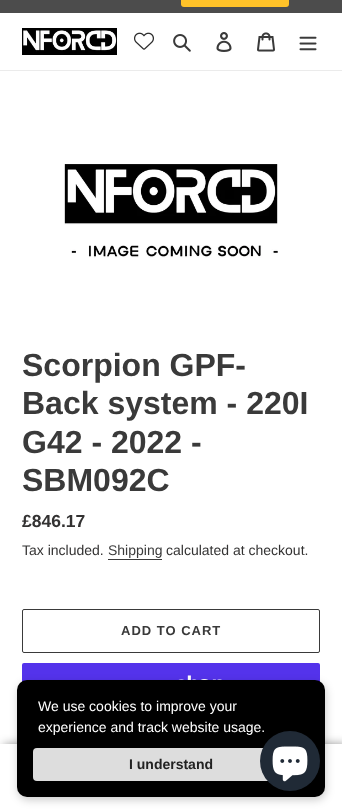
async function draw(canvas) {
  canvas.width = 342;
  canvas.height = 812;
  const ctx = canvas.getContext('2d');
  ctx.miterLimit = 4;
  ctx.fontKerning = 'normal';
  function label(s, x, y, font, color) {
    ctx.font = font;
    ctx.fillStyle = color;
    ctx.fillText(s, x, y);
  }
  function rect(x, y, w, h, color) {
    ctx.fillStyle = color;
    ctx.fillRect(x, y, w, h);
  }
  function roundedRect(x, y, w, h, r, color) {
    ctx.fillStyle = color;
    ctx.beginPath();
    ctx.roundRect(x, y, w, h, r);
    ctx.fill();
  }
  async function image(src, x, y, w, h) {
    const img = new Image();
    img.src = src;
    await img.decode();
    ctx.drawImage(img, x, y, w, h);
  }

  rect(0, 0, 342, 812, '#fff');
  rect(0, 0, 342, 13, '#4c4c4c');
  roundedRect(181, -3, 108, 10, 3, '#ffc229');
  rect(0, 70, 342, 1, '#ebebeb');
  await image('assets/img1.png', 22, 28, 95, 27);
  await image('assets/img2.png', 134, 32, 20, 18);
  await image('assets/img3.png', 173, 34, 18, 18);
  await image('assets/img4.png', 216, 32, 16, 20);
  await image('assets/img5.png', 257, 32, 18, 20);
  await image('assets/img6.png', 299, 36, 18, 15);
  await image('assets/img7.png', 64, 164, 214, 94);
  label('Scorpion GPF-', 22, 376, 'bold 32px Liberation Sans', '#3a3a3a');
  label('Back system - 220I', 22, 414, 'bold 32px Liberation Sans', '#3a3a3a');
  label('G42 - 2022 -', 22, 453, 'bold 32px Liberation Sans', '#3a3a3a');
  label('SBM092C', 22, 491, 'bold 32px Liberation Sans', '#3a3a3a');
  label('£846.17', 22, 527, 'bold 17.5px Liberation Sans', '#333232');
  label('Tax included.', 22, 555, '14px Liberation Sans', '#333232');
  label('Shipping', 108, 555, '14px Liberation Sans', '#3a3a3a');
  rect(108, 559, 54, 1, '#3a3a3a');
  label('calculated at checkout.', 166, 555, '14px Liberation Sans', '#333232');
  ctx.beginPath();
  ctx.roundRect(22.5, 609.5, 297, 43, 1.5);
  ctx.strokeStyle = '#3a3a3a';
  ctx.stroke();
  ctx.letterSpacing = '1px';
  label('ADD TO CART', 121, 635, 'bold 13px Liberation Sans', '#3a3a3a');
  roundedRect(22, 663, 298, 44, 2, '#5433eb');
  await image('assets/img8.png', 178, 675, 44, 5);
  ctx.fillStyle = '#00000066';
  ctx.filter = 'blur(5px)';
  ctx.beginPath();
  ctx.rect(4, 744, 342, 68);
  ctx.fill();
  ctx.filter = 'none';
  rect(0, 744, 342, 68, '#fff');
  ctx.fillStyle = '#00000033';
  ctx.filter = 'blur(4px)';
  ctx.beginPath();
  ctx.roundRect(18, 683, 308, 117, 10);
  ctx.fill();
  ctx.filter = 'none';
  roundedRect(17, 680, 308, 117, 10, '#000');
  ctx.letterSpacing = '0px';
  label('We use cookies to improve your', 38, 711, '14px Liberation Sans', '#fff');
  label('experience and track website usage.', 38, 732, '14px Liberation Sans', '#fff');
  roundedRect(33, 748, 276, 33, 4, '#ddd');
  label('I understand', 129, 769, 'bold 14px Liberation Sans', '#222');
  ctx.fillStyle = '#202a36';
  ctx.beginPath();
  ctx.arc(290, 761, 30, 0, 2 * Math.PI);
  ctx.fill();
  await image('assets/img9.png', 272, 746, 36, 36);
}

draw(document.querySelector('canvas'));
